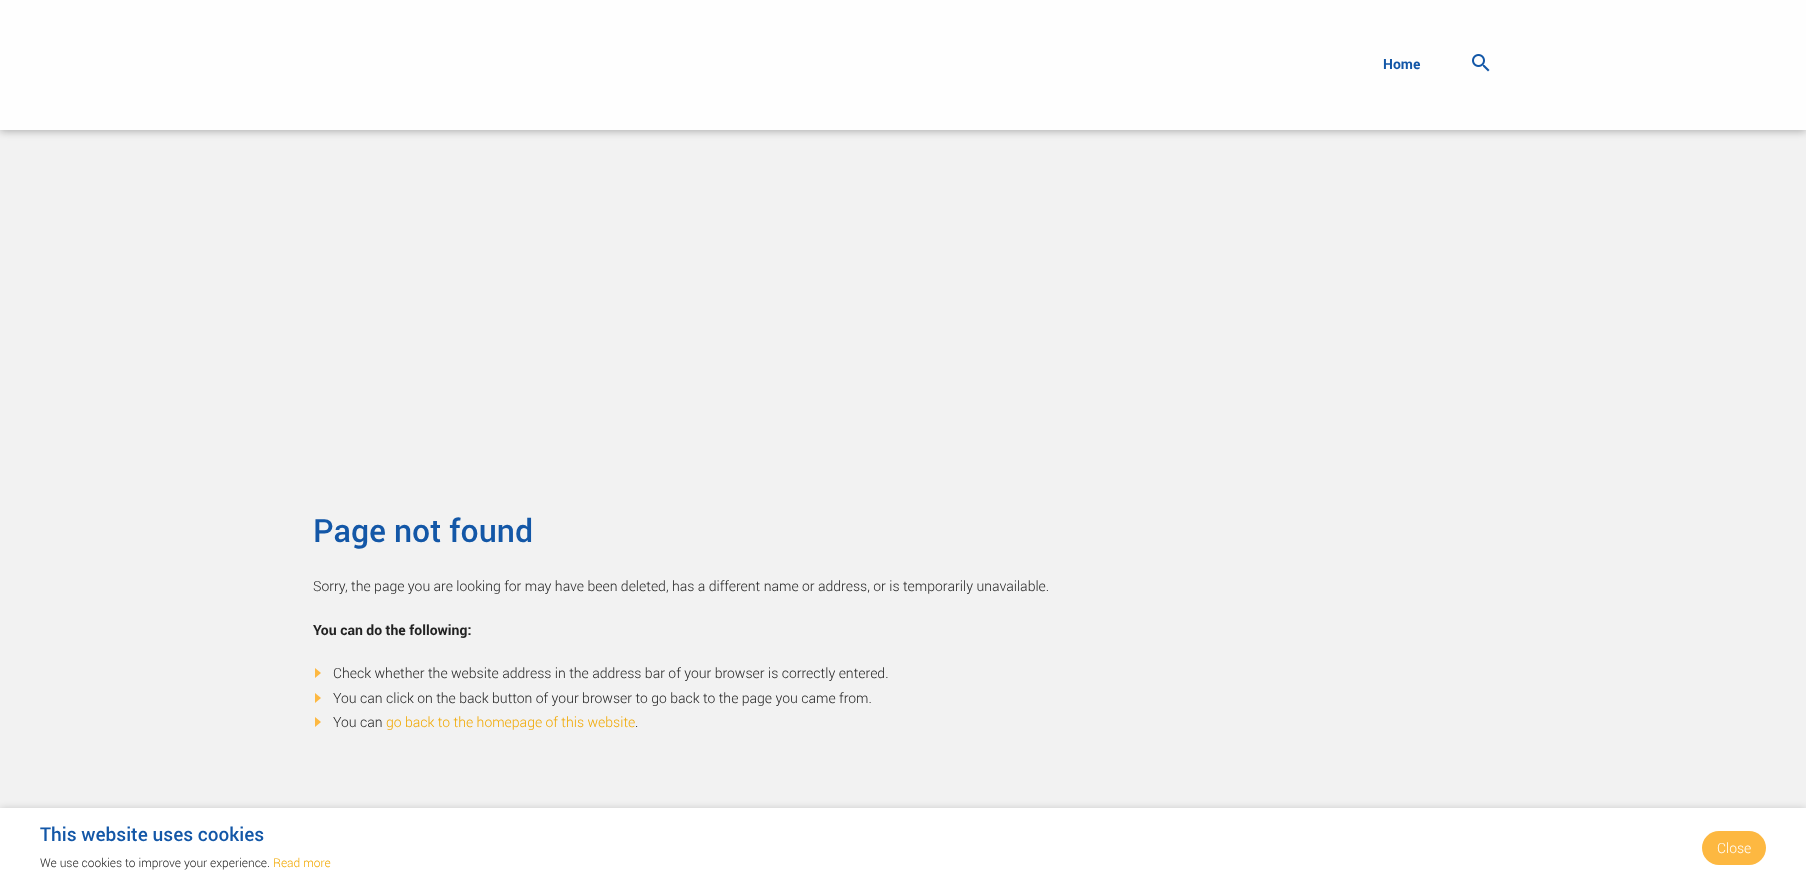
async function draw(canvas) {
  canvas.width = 1806;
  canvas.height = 888;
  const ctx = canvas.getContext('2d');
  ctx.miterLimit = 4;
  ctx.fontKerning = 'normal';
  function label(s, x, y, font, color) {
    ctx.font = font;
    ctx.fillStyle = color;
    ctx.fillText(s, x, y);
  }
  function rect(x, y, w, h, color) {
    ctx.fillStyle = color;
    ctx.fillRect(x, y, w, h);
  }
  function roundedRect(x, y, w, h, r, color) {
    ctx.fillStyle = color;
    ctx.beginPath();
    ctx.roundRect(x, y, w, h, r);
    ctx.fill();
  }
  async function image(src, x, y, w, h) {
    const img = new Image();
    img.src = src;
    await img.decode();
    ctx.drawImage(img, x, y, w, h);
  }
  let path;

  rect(0, 0, 1806, 888, '#f2f2f2');
  ctx.fillStyle = '#0000004d';
  ctx.filter = 'blur(4px)';
  ctx.beginPath();
  ctx.rect(0, 1, 1806, 130);
  ctx.fill();
  ctx.filter = 'none';
  rect(0, 0, 1806, 130, '#fefefe');
  label('Home', 1383, 69, 'bold 14px Roboto', '#1357a7');
  await image('assets/img1.png', 1472, 54, 18, 18);
  label('Page not found', 313, 542, '500 32px Roboto', '#1357a7');
  label('Sorry, the page you are looking for may have been deleted, has a different name or address, or is temporarily unavailable.', 313, 591, '300 14px Roboto', '#232323');
  label('You can do the following:', 313, 635, 'bold 14px Roboto', '#232323');
  ctx.fillStyle = '#fdb841';
  path = new Path2D('M315 678V668L321 673Z');
  ctx.fill(path);
  label('Check whether the website address in the address bar of your browser is correctly entered.', 333, 678, '300 14px Roboto', '#232323');
  ctx.fillStyle = '#fdb841';
  path = new Path2D('M315 703V693L321 698Z');
  ctx.fill(path);
  label('You can click on the back button of your browser to go back to the page you came from.', 333, 703, '300 14px Roboto', '#232323');
  ctx.fillStyle = '#fdb841';
  path = new Path2D('M315 727V717L321 722Z');
  ctx.fill(path);
  label('You can', 333, 727, '300 14px Roboto', '#232323');
  label('go back to the homepage of this website', 386, 727, '300 14px Roboto', '#f1a800');
  label('.', 635, 727, '300 14px Roboto', '#232323');
  ctx.fillStyle = '#00000033';
  ctx.filter = 'blur(4px)';
  ctx.beginPath();
  ctx.rect(0, 809, 1806, 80);
  ctx.fill();
  ctx.filter = 'none';
  rect(0, 808, 1806, 80, '#fff');
  label('This website uses cookies', 40, 841, '500 19px Roboto', '#1357a7');
  label('We use cookies to improve your experience.', 40, 867, '300 12px Roboto', '#232323');
  label('Read more', 273, 867, '300 12px Roboto', '#f1a800');
  roundedRect(1702, 831, 64, 34, 17, '#fdb841');
  label('Close', 1717, 853, '300 14px Roboto', '#fff');
}

draw(document.querySelector('canvas'));
